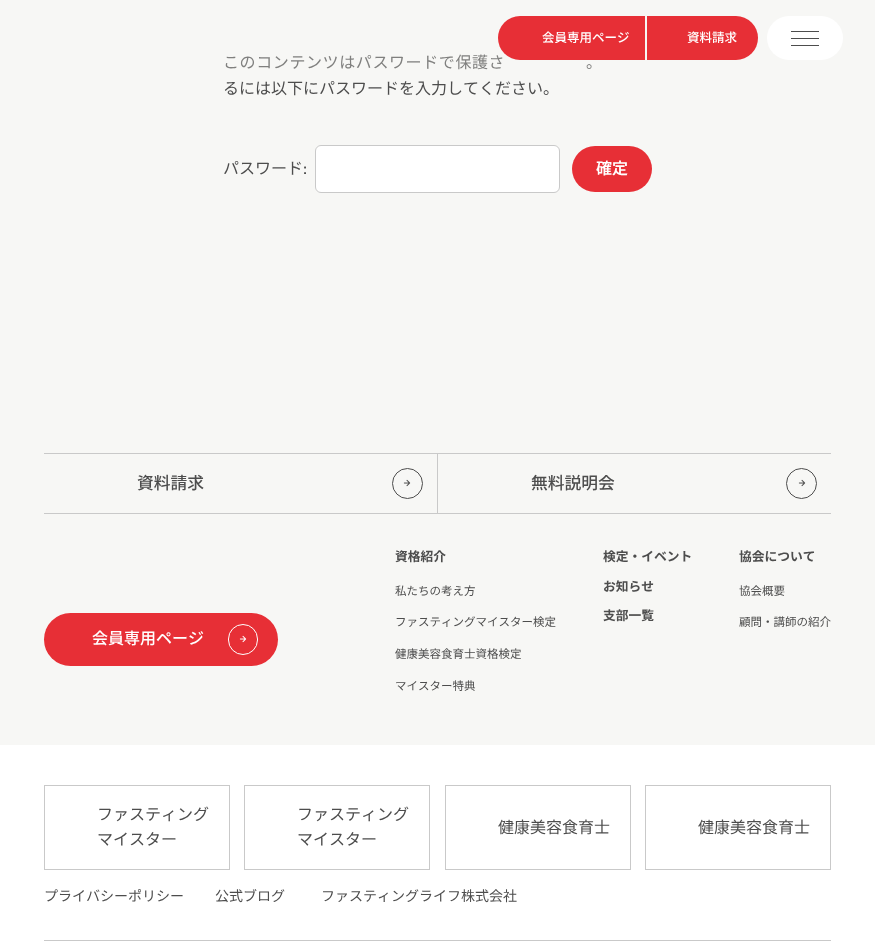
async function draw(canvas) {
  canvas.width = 875;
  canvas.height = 946;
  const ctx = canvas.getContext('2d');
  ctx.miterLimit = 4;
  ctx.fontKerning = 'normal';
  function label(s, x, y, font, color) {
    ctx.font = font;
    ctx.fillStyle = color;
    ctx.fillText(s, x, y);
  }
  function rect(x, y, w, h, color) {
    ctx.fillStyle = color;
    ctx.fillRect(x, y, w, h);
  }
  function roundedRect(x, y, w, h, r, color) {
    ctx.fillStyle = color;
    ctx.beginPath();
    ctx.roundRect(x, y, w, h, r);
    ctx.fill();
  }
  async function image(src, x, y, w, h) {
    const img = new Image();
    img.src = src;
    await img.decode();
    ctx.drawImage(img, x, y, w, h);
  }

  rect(0, 0, 875, 946, '#f7f7f5');
  ctx.letterSpacing = '0.6px';
  label('このコンテンツはパスワードで保護さ', 223, 68, '16px Noto Sans JP', '#80807f');
  ctx.fillStyle = '#e72f36';
  ctx.beginPath();
  ctx.roundRect(498, 16, 147, 44, [22, 0, 0, 22]);
  ctx.fill();
  ctx.letterSpacing = '0px';
  label('会員専用ページ', 542, 42, '500 12.5px Noto Sans JP', '#fff');
  ctx.fillStyle = '#e72f36';
  ctx.beginPath();
  ctx.roundRect(647, 16, 111, 44, [0, 22, 22, 0]);
  ctx.fill();
  label('資料請求', 687, 42, '500 12.5px Noto Sans JP', '#fff');
  roundedRect(767, 16, 76, 44, 22, '#fff');
  rect(791, 31, 28, 1, '#4d4d4d');
  rect(791, 38, 28, 1, '#4d4d4d');
  rect(791, 45, 28, 1, '#4d4d4d');
  ctx.letterSpacing = '0.6px';
  label('。', 586, 68, '16px Noto Sans JP', '#80807f');
  ctx.letterSpacing = '0px';
  label('るには以下にパスワードを入力してください。', 223, 94, '16px Noto Sans JP', '#4d4d4d');
  label('パスワード', 223, 174, '16px Noto Sans JP', '#4d4d4d');
  label(':', 303, 174, '16px Rubik', '#4d4d4d');
  ctx.fillStyle = '#fff';
  ctx.beginPath();
  ctx.roundRect(315.5, 145.5, 244, 47, 5.5);
  ctx.fill();
  ctx.strokeStyle = '#c9c9c9';
  ctx.stroke();
  roundedRect(572, 146, 80, 46, 23, '#e72f36');
  label('確定', 596, 174, '600 16px Noto Sans JP', '#fff');
  rect(44, 453, 787, 1, '#c9c9c9');
  rect(44, 513, 787, 1, '#c9c9c9');
  rect(437, 454, 1, 59, '#c9c9c9');
  label('資料請求', 137, 489, '500 16.75px Noto Sans JP', '#4d4d4d');
  ctx.beginPath();
  ctx.arc(407.5, 483.5, 15, 0, 2 * Math.PI);
  ctx.strokeStyle = '#4d4d4d';
  ctx.stroke();
  await image('assets/img1.png', 403, 479, 8, 8);
  label('無料説明会', 531, 489, '500 16.75px Noto Sans JP', '#4d4d4d');
  ctx.beginPath();
  ctx.arc(801.5, 483.5, 15, 0, 2 * Math.PI);
  ctx.stroke();
  await image('assets/img1.png', 798, 479, 8, 8);
  roundedRect(44, 613, 234, 53, 26.5, '#e72f36');
  label('会員専用ページ', 92, 644, '500 16px Noto Sans JP', '#fff');
  ctx.beginPath();
  ctx.roundRect(228.5, 624.5, 29, 30, 14.5);
  ctx.strokeStyle = '#fff';
  ctx.stroke();
  await image('assets/img2.png', 239, 635, 8, 8);
  label('資格紹介', 395, 561, 'bold 12.75px Noto Sans JP', '#4d4d4d');
  label('私たちの考え方', 395, 595, '11.5px Noto Sans JP', '#4d4d4d');
  label('ファスティングマイスター検定', 395, 626, '11.5px Noto Sans JP', '#4d4d4d');
  label('健康美容食育士資格検定', 395, 658, '11.5px Noto Sans JP', '#4d4d4d');
  label('マイスター特典', 395, 690, '11.5px Noto Sans JP', '#4d4d4d');
  label('検定・イベント', 603, 561, 'bold 12.75px Noto Sans JP', '#4d4d4d');
  label('お知らせ', 603, 591, 'bold 12.75px Noto Sans JP', '#4d4d4d');
  label('支部一覧', 603, 620, 'bold 12.75px Noto Sans JP', '#4d4d4d');
  label('協会について', 739, 561, 'bold 12.75px Noto Sans JP', '#4d4d4d');
  label('協会概要', 739, 595, '11.5px Noto Sans JP', '#4d4d4d');
  label('顧問・講師の紹介', 739, 626, '11.5px Noto Sans JP', '#4d4d4d');
  rect(0, 745, 875, 201, '#fff');
  ctx.strokeStyle = '#c9c9c9';
  ctx.strokeRect(44.5, 785.5, 185, 84);
  label('ファスティング', 97, 820, '16px Noto Sans JP', '#4d4d4d');
  label('マイスター', 97, 845, '16px Noto Sans JP', '#4d4d4d');
  ctx.strokeRect(244.5, 785.5, 185, 84);
  label('ファスティング', 297, 820, '16px Noto Sans JP', '#4d4d4d');
  label('マイスター', 297, 845, '16px Noto Sans JP', '#4d4d4d');
  ctx.strokeRect(445.5, 785.5, 185, 84);
  label('健康美容食育士', 498, 833, '16px Noto Sans JP', '#4d4d4d');
  ctx.strokeRect(645.5, 785.5, 185, 84);
  label('健康美容食育士', 698, 833, '16px Noto Sans JP', '#4d4d4d');
  label('プライバシーポリシー', 44, 901, '14px Noto Sans JP', '#4d4d4d');
  label('公式ブログ', 215, 901, '14px Noto Sans JP', '#4d4d4d');
  label('ファスティングライフ株式会社', 321, 901, '14px Noto Sans JP', '#4d4d4d');
  rect(44, 940, 787, 1, '#c9c9c9');
}

draw(document.querySelector('canvas'));
